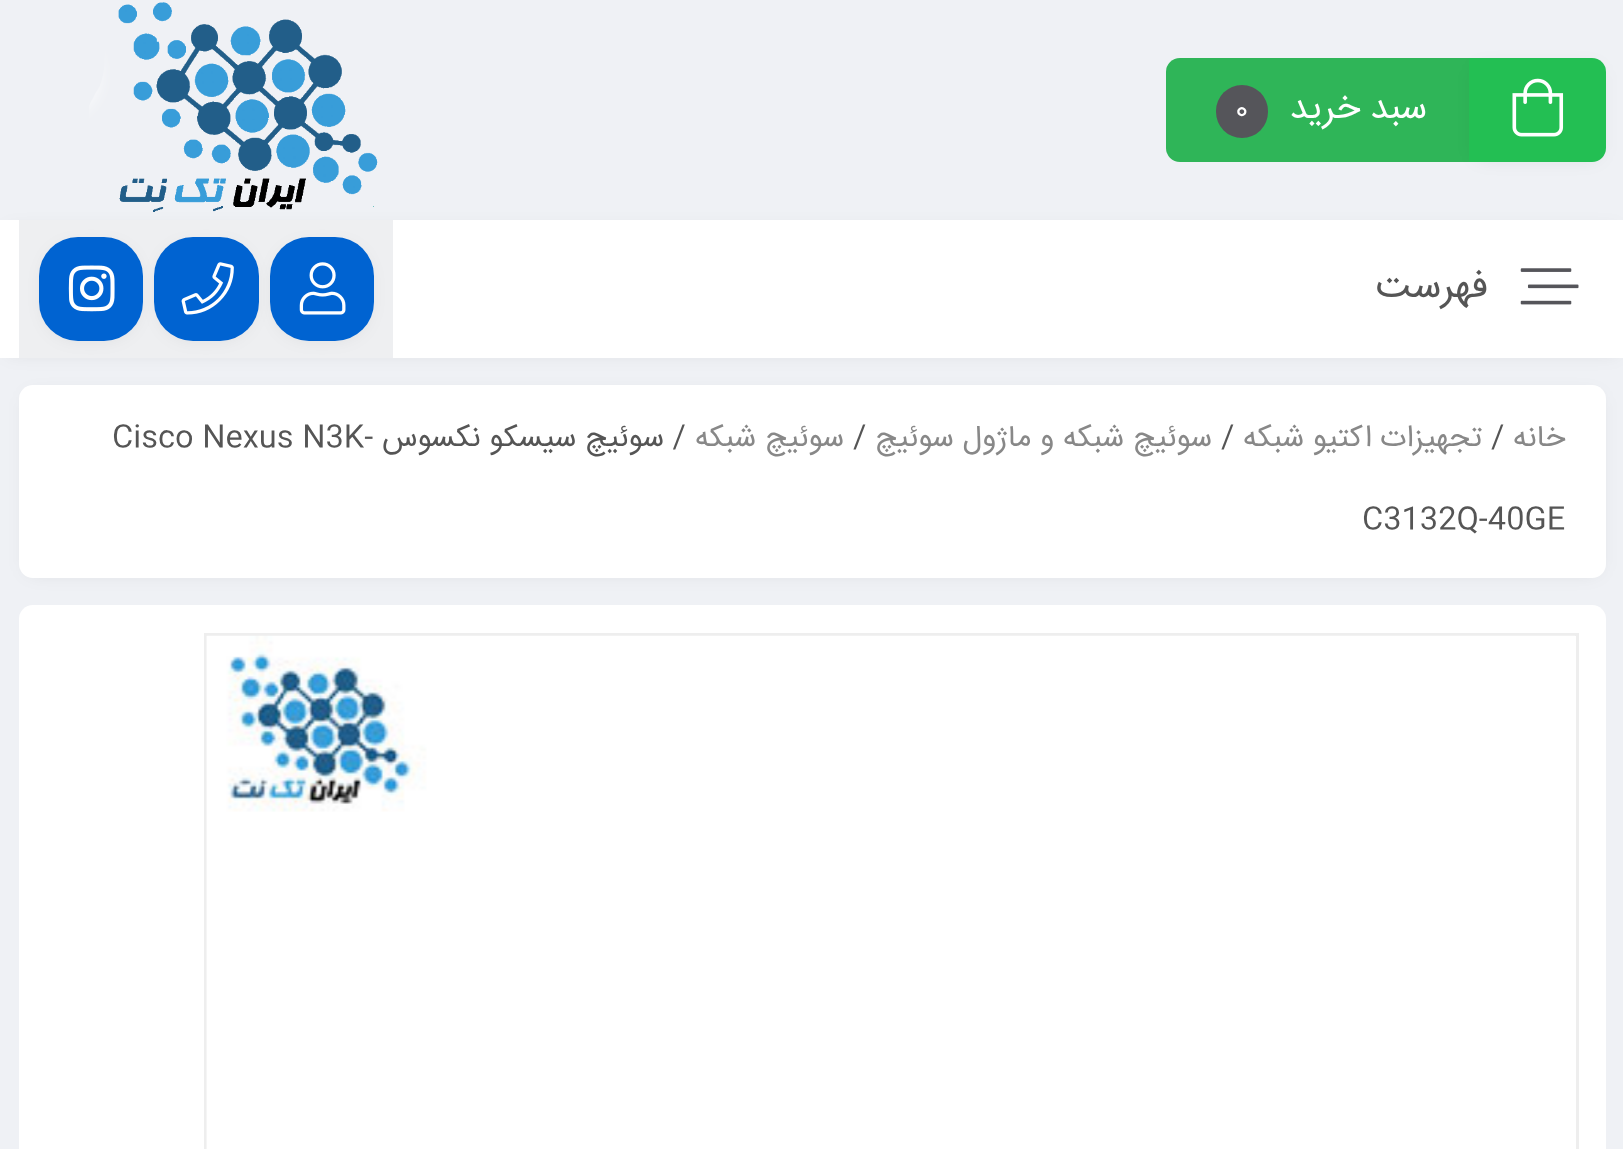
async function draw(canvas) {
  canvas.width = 1623;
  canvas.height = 1149;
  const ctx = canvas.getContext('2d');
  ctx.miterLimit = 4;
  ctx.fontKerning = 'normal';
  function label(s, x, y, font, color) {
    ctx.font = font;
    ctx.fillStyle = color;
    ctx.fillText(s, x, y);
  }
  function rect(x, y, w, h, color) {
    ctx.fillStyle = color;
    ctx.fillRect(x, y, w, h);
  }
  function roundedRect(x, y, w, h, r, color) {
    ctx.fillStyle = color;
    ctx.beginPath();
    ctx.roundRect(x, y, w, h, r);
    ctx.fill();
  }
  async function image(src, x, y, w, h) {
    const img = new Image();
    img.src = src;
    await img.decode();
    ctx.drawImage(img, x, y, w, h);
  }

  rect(0, 0, 1623, 1149, '#eff1f5');
  ctx.fillStyle = '#2fb558';
  ctx.beginPath();
  ctx.roundRect(1166, 58, 303, 104, [14, 0, 0, 14]);
  ctx.fill();
  ctx.fillStyle = '#0000001a';
  ctx.filter = 'blur(9.5px)';
  ctx.beginPath();
  ctx.roundRect(1477, 69, 121, 88, 6);
  ctx.fill();
  ctx.filter = 'none';
  ctx.fillStyle = '#23bf53';
  ctx.beginPath();
  ctx.roundRect(1469, 58, 137, 104, [0, 14, 14, 0]);
  ctx.fill();
  await image('assets/img1.png', 1512, 78, 52, 59);
  ctx.direction = 'rtl';
  label('سبد خرید', 1427, 118, '36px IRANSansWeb', '#fff');
  roundedRect(1216, 85, 52, 53, 26, '#55555a');
  ctx.direction = 'ltr';
  label('0', 1235, 118, '28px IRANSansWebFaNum', '#fff');
  await image('assets/img2.png', 89, 2, 289, 210);
  ctx.fillStyle = '#0000001a';
  ctx.filter = 'blur(9.5px)';
  ctx.beginPath();
  ctx.rect(8, 231, 1609, 121);
  ctx.fill();
  ctx.filter = 'none';
  rect(0, 220, 1623, 138, '#fff');
  await image('assets/img3.png', 1520, 268, 59, 37);
  ctx.direction = 'rtl';
  label('فهرست', 1488, 297, '38.5px IRANSansWeb', '#555');
  rect(19, 220, 374, 138, '#eeeff1');
  ctx.fillStyle = '#0000001a';
  ctx.filter = 'blur(9.5px)';
  ctx.beginPath();
  ctx.roundRect(47, 248, 88, 88, 30);
  ctx.fill();
  ctx.filter = 'none';
  roundedRect(39, 237, 104, 104, 39, '#0063d1');
  ctx.fillStyle = '#0000001a';
  ctx.filter = 'blur(9.5px)';
  ctx.beginPath();
  ctx.roundRect(162, 248, 88, 88, 30);
  ctx.fill();
  ctx.filter = 'none';
  roundedRect(154, 237, 105, 104, 39, '#0063d1');
  ctx.fillStyle = '#0000001a';
  ctx.filter = 'blur(9.5px)';
  ctx.beginPath();
  ctx.roundRect(278, 248, 88, 88, 30);
  ctx.fill();
  ctx.filter = 'none';
  roundedRect(270, 237, 104, 104, 39, '#0063d1');
  await image('assets/img4.png', 299, 262, 47, 53);
  await image('assets/img5.png', 181, 262, 53, 53);
  await image('assets/img6.png', 68, 265, 47, 47);
  ctx.fillStyle = '#0000001a';
  ctx.filter = 'blur(9.5px)';
  ctx.beginPath();
  ctx.roundRect(28, 396, 1570, 176, 6);
  ctx.fill();
  ctx.filter = 'none';
  roundedRect(19, 385, 1587, 193, 14, '#fff');
  label('خانه', 1565, 446, '30.25px IRANSansWeb', '#888');
  ctx.direction = 'ltr';
  label('/', 1491, 446, '30.25px IRANSansWeb', '#555');
  ctx.direction = 'rtl';
  label('تجهیزات اکتیو شبکه', 1482, 446, '30.25px IRANSansWeb', '#888');
  ctx.direction = 'ltr';
  label('/', 1221, 446, '30.25px IRANSansWeb', '#555');
  ctx.direction = 'rtl';
  label('سوئیچ شبکه و ماژول سوئیچ', 1212, 446, '30.25px IRANSansWeb', '#888');
  ctx.direction = 'ltr';
  label('/', 853, 446, '30.25px IRANSansWeb', '#555');
  ctx.direction = 'rtl';
  label('سوئیچ شبکه', 844, 446, '30.25px IRANSansWeb', '#888');
  label('/ سوئیچ سیسکو نکسوس', 686, 446, '30.25px IRANSansWeb', '#555');
  ctx.direction = 'ltr';
  label('Cisco Nexus N3K-', 112, 446, '30.25px IRANSansWeb', '#555');
  label('C3132Q-40GE', 1362, 528, '30.25px IRANSansWeb', '#555');
  roundedRect(19, 605, 1587, 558, 14, '#fff');
  ctx.strokeStyle = '#eee';
  ctx.lineWidth = 3;
  ctx.strokeRect(205.5, 634.5, 1372, 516);
  await image('assets/img7.png', 206, 635, 1369, 514);
}

draw(document.querySelector('canvas'));
